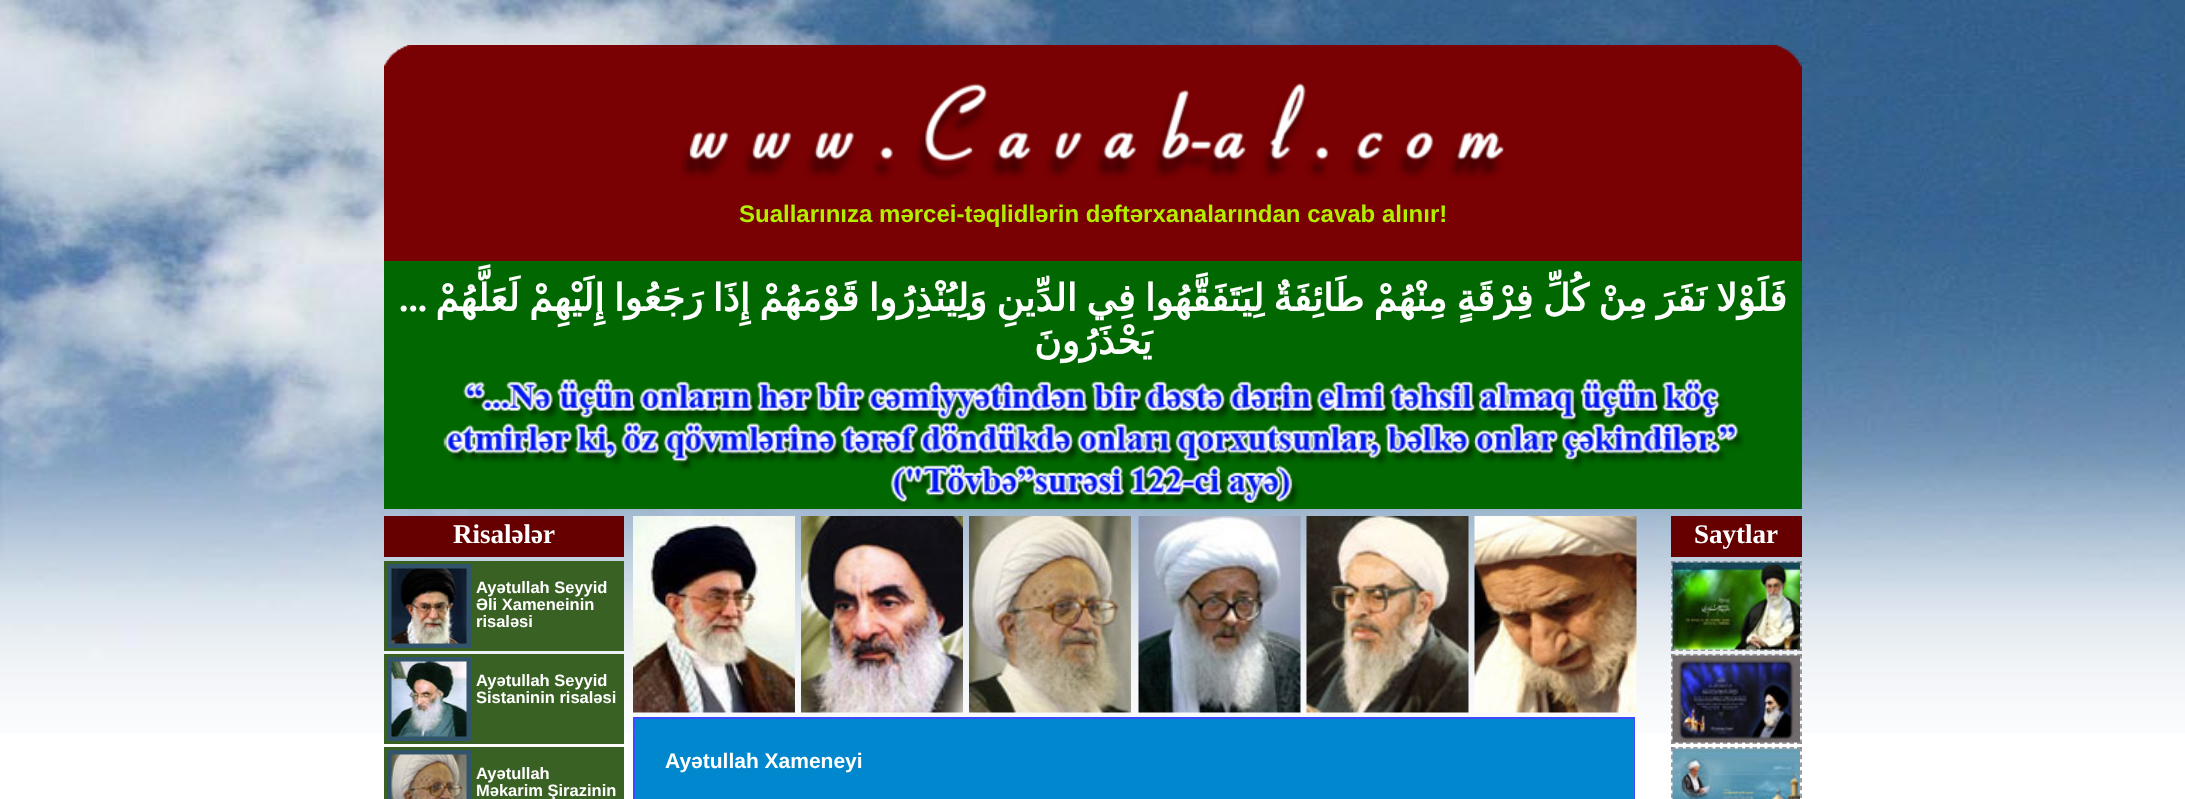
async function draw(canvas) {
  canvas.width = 2185;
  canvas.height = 799;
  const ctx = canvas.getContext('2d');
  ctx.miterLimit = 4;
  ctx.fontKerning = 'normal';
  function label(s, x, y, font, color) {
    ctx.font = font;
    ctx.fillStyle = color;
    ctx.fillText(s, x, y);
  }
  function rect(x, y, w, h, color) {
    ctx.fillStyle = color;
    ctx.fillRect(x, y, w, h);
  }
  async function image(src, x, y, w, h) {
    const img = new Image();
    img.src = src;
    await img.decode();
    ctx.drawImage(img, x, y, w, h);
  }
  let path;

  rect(0, 0, 2185, 799, '#fff');
  await image('assets/img1.png', 0, 0, 2185, 733);
  await image('assets/img2.png', 384, 45, 1418, 21);
  rect(384, 66, 1418, 195, '#790103');
  await image('assets/img3.png', 681, 83, 823, 98);
  label('Suallarınıza mərcei-təqlidlərin dəftərxanalarından cavab alınır!', 739, 222, 'bold 24px Liberation Sans', '#b3ee00');
  rect(384, 261, 1418, 248, '#016701');
  label('...', 399, 311, 'bold 37.5px Liberation Serif', '#fff');
  ctx.save();
  ctx.beginPath();
  ctx.rect(384, 0, 1418, 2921);
  ctx.clip();
  ctx.wordSpacing = '-2.5px';
  ctx.direction = 'rtl';
  label('فَلَوْلا نَفَرَ مِنْ كُلِّ فِرْقَةٍ مِنْهُمْ طَائِفَةٌ لِيَتَفَقَّهُوا فِي الدِّينِ وَلِيُنْذِرُوا قَوْمَهُمْ إِذَا رَجَعُوا إِلَيْهِمْ لَعَلَّهُمْ', 1787, 311, 'bold 37.5px DejaVu Sans', '#fff');
  ctx.restore();
  ctx.direction = 'rtl';
  label('يَحْذَرُونَ', 1152, 354, 'bold 37.5px DejaVu Sans', '#fff');
  await image('assets/img4.png', 443, 379, 1301, 127);
  rect(384, 516, 240, 41, '#600');
  ctx.direction = 'ltr';
  label('Risalələr', 453, 543, 'bold 27px Liberation Serif', '#fff');
  rect(384, 561, 240, 90, '#3a6124');
  ctx.strokeStyle = '#32546a';
  ctx.lineWidth = 5;
  ctx.strokeRect(389.5, 566.5, 79, 79);
  await image('assets/img5.png', 391, 568, 76, 76);
  label('Ayətullah Seyyid', 476, 593, 'bold 16.5px Liberation Sans', '#fff');
  label('Əli Xameneinin', 476, 610, 'bold 16.5px Liberation Sans', '#fff');
  label('risaləsi', 476, 627, 'bold 16.5px Liberation Sans', '#fff');
  rect(384, 654, 240, 90, '#3a6124');
  ctx.strokeRect(389.5, 659.5, 79, 79);
  await image('assets/img6.png', 391, 661, 76, 76);
  label('Ayətullah Seyyid', 476, 686, 'bold 16.5px Liberation Sans', '#fff');
  label('Sistaninin risaləsi', 476, 703, 'bold 16.5px Liberation Sans', '#fff');
  rect(384, 747, 240, 52, '#3a6124');
  ctx.strokeRect(389.5, 752.5, 79, 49);
  await image('assets/img7.png', 391, 754, 76, 45);
  label('Ayətullah', 476, 779, 'bold 16.5px Liberation Sans', '#fff');
  label('Məkarim Şirazinin', 476, 796, 'bold 16.5px Liberation Sans', '#fff');
  rect(1671, 516, 131, 41, '#600');
  label('Saytlar', 1694, 543, 'bold 27px Liberation Serif', '#fff');
  path = new Path2D('M1671 562H1801.5');
  ctx.strokeStyle = '#808080';
  ctx.lineWidth = 1.5;
  ctx.setLineDash([4.5, 2.91]);
  ctx.stroke(path);
  path = new Path2D('M1801 561V651');
  ctx.setLineDash([4.5, 3.27]);
  ctx.stroke(path);
  path = new Path2D('M1671 650H1801.5');
  ctx.setLineDash([4.5, 2.91]);
  ctx.stroke(path);
  path = new Path2D('M1672 561V651');
  ctx.setLineDash([4.5, 3.27]);
  ctx.stroke(path);
  await image('assets/img8.png', 1672, 562, 128, 88);
  path = new Path2D('M1671 655H1801.5');
  ctx.setLineDash([4.5, 2.91]);
  ctx.stroke(path);
  path = new Path2D('M1801 654V744');
  ctx.setLineDash([4.5, 3.27]);
  ctx.stroke(path);
  path = new Path2D('M1671 743H1801.5');
  ctx.setLineDash([4.5, 2.91]);
  ctx.stroke(path);
  path = new Path2D('M1672 654V744');
  ctx.setLineDash([4.5, 3.27]);
  ctx.stroke(path);
  await image('assets/img9.png', 1672, 655, 128, 88);
  path = new Path2D('M1671 748H1801.5');
  ctx.setLineDash([4.5, 2.91]);
  ctx.stroke(path);
  path = new Path2D('M1801 747V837');
  ctx.setLineDash([4.5, 3.27]);
  ctx.stroke(path);
  path = new Path2D('M1672 747V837');
  ctx.stroke(path);
  await image('assets/img10.png', 1672, 748, 128, 51);
  await image('assets/img11.png', 633, 516, 162, 197);
  await image('assets/img12.png', 801, 516, 162, 197);
  await image('assets/img13.png', 969, 516, 162, 197);
  await image('assets/img14.png', 1138, 516, 163, 197);
  await image('assets/img15.png', 1306, 516, 163, 197);
  await image('assets/img16.png', 1474, 516, 163, 197);
  ctx.strokeStyle = '#3d4bff';
  ctx.lineWidth = 2;
  ctx.setLineDash([]);
  ctx.strokeRect(634, 718, 1000, 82);
  rect(635, 719, 999, 80, '#0087cd');
  label('Ayətullah Xameneyi', 665, 768, 'bold 21px Liberation Sans', '#fff');
}

draw(document.querySelector('canvas'));
